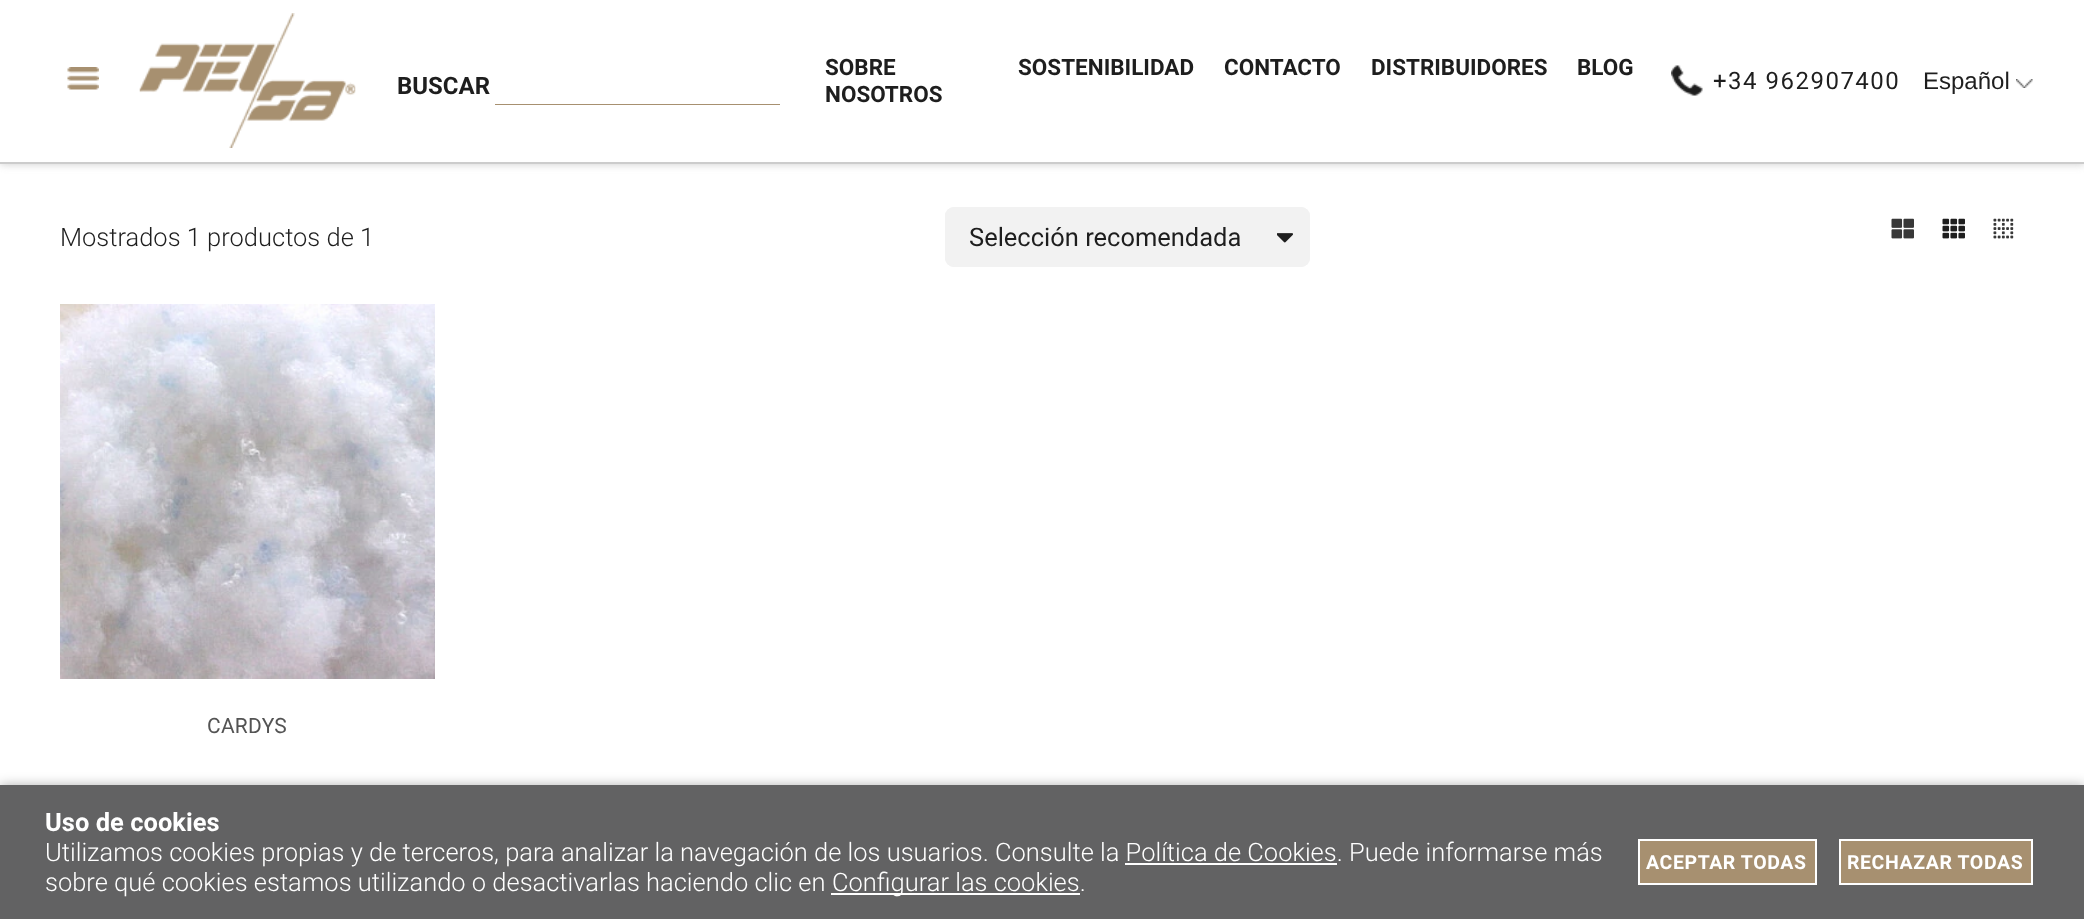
async function draw(canvas) {
  canvas.width = 2084;
  canvas.height = 919;
  const ctx = canvas.getContext('2d');
  ctx.miterLimit = 4;
  ctx.fontKerning = 'normal';
  function label(s, x, y, font, color) {
    ctx.font = font;
    ctx.fillStyle = color;
    ctx.fillText(s, x, y);
  }
  function rect(x, y, w, h, color) {
    ctx.fillStyle = color;
    ctx.fillRect(x, y, w, h);
  }
  function roundedRect(x, y, w, h, r, color) {
    ctx.fillStyle = color;
    ctx.beginPath();
    ctx.roundRect(x, y, w, h, r);
    ctx.fill();
  }
  async function image(src, x, y, w, h) {
    const img = new Image();
    img.src = src;
    await img.decode();
    ctx.drawImage(img, x, y, w, h);
  }

  rect(0, 0, 2084, 919, '#fff');
  ctx.fillStyle = '#ccc';
  ctx.filter = 'blur(4px)';
  ctx.beginPath();
  ctx.rect(0, 0, 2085, 164);
  ctx.fill();
  ctx.filter = 'none';
  rect(0, 0, 2084, 162, '#fff');
  rect(0, 162, 2084, 2, '#ccc');
  await image('assets/img1.png', 67, 67, 32, 23);
  await image('assets/img2.png', 139, 13, 217, 135);
  label('BUSCAR', 397, 94, 'bold 24px Roboto', '#1e1e1e');
  rect(495, 104, 285, 1, '#a79070');
  label('SOBRE', 825, 75, 'bold 22.5px Roboto', '#1e1e1e');
  label('NOSOTROS', 825, 102, 'bold 22.5px Roboto', '#1e1e1e');
  label('SOSTENIBILIDAD', 1018, 75, 'bold 22.5px Roboto', '#1e1e1e');
  label('CONTACTO', 1224, 75, 'bold 22.5px Roboto', '#1e1e1e');
  label('DISTRIBUIDORES', 1371, 75, 'bold 22.5px Roboto', '#1e1e1e');
  label('BLOG', 1577, 75, 'bold 22.5px Roboto', '#1e1e1e');
  await image('assets/img3.png', 1671, 65, 32, 31);
  ctx.letterSpacing = '1.5px';
  label('+34 962907400', 1713, 89, '24px Roboto', '#1e1e1e');
  ctx.letterSpacing = '0px';
  label('Español', 1923, 89, '24px Liberation Sans', '#1e1e1e');
  await image('assets/img4.png', 2016, 79, 17, 9);
  label('Mostrados 1 productos de 1', 60, 246, '300 25.5px Roboto', '#1e1e1e');
  roundedRect(945, 207, 365, 60, 9, '#f2f2f2');
  await image('assets/img5.png', 1277, 233, 16, 10);
  ctx.beginPath();
  ctx.roundRect(946, 208, 363, 58, 8);
  ctx.strokeStyle = '#f2f2f2';
  ctx.lineWidth = 2;
  ctx.stroke();
  label('Selección recomendada', 969, 246, '25.5px Roboto', '#1e1e1e');
  await image('assets/img6.png', 1891, 218, 23, 21);
  await image('assets/img7.png', 1942, 218, 23, 21);
  await image('assets/img8.png', 1993, 218, 21, 21);
  await image('assets/img9.png', 60, 304, 375, 375);
  ctx.letterSpacing = '0.25px';
  label('CARDYS', 207, 733, '21px Roboto', '#545454');
  ctx.fillStyle = '#0000004d';
  ctx.filter = 'blur(6px)';
  ctx.beginPath();
  ctx.rect(0, 785, 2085, 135);
  ctx.fill();
  ctx.filter = 'none';
  rect(0, 785, 2084, 134, '#626263');
  ctx.letterSpacing = '0px';
  label('Uso de cookies', 45, 831, 'bold 25.5px Roboto', '#fff');
  label('Utilizamos cookies propias y de terceros, para analizar la navegación de los usuarios. Consulte la Política de Cookies. Puede informarse más', 45, 861, '300 25.5px Roboto', '#fff');
  rect(1125, 863, 212, 2, '#fff');
  label('sobre qué cookies estamos utilizando o desactivarlas haciendo clic en', 45, 891, '300 25.5px Roboto', '#fff');
  rect(831, 893, 249, 2, '#fff');
  label('Configurar las cookies.', 832, 891, '300 25.5px Roboto', '#fff');
  ctx.fillStyle = '#a79070';
  ctx.beginPath();
  ctx.rect(1639, 840, 177, 44);
  ctx.fill();
  ctx.strokeStyle = '#fff';
  ctx.stroke();
  ctx.letterSpacing = '0.6px';
  label('ACEPTAR TODAS', 1646, 869, 'bold 19.5px Roboto', '#fff');
  ctx.fillStyle = '#a79070';
  ctx.beginPath();
  ctx.rect(1840, 840, 192, 44);
  ctx.fill();
  ctx.stroke();
  label('RECHAZAR TODAS', 1847, 869, 'bold 19.5px Roboto', '#fff');
}

draw(document.querySelector('canvas'));
